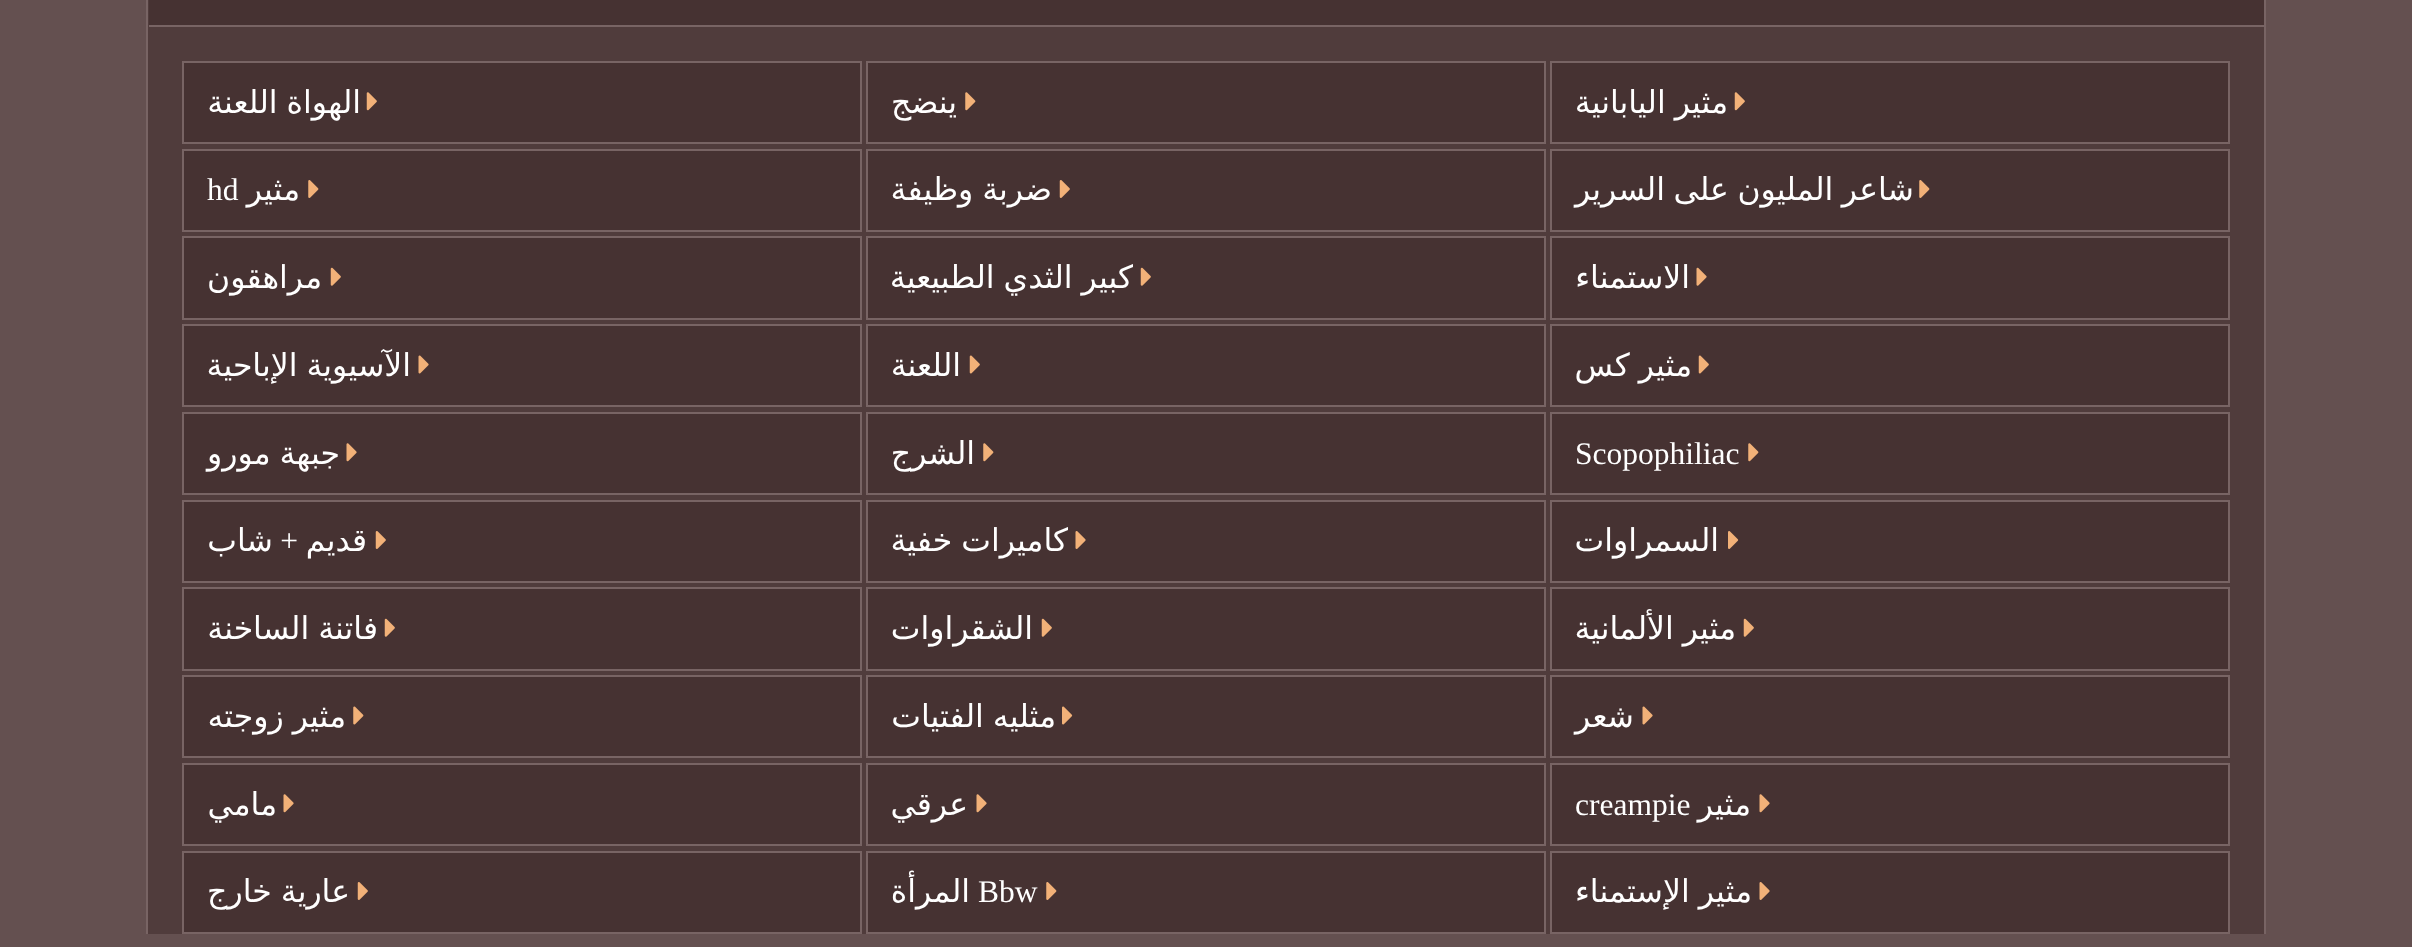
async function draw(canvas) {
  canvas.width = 2412;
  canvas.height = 947;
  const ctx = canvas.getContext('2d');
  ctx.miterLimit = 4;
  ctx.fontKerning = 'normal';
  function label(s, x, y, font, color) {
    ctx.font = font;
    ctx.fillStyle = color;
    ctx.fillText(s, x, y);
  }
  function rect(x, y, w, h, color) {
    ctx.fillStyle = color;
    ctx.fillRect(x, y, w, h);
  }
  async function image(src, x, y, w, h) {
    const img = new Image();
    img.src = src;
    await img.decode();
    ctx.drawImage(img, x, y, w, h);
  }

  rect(0, 0, 2412, 947, '#645050');
  rect(148, 0, 2116, 934, '#503c3c');
  rect(2264, 0, 2, 934, '#786464');
  rect(146, 0, 2, 934, '#786464');
  rect(149, 0, 2115, 25, '#463232');
  rect(149, 25, 2115, 2, '#786464');
  ctx.fillStyle = '#463232';
  ctx.beginPath();
  ctx.rect(1551, 62, 678, 81);
  ctx.fill();
  ctx.strokeStyle = '#786464';
  ctx.lineWidth = 2;
  ctx.stroke();
  await image('assets/img1.png', 1734, 92, 11, 19);
  ctx.wordSpacing = '-1px';
  ctx.direction = 'rtl';
  label('مثير اليابانية', 1728, 113, '31.5px DejaVu Sans', '#fff');
  ctx.fillStyle = '#463232';
  ctx.beginPath();
  ctx.rect(1551, 150, 678, 81);
  ctx.fill();
  ctx.stroke();
  await image('assets/img2.png', 1919, 180, 11, 18);
  ctx.wordSpacing = '-1.5px';
  label('شاعر المليون على السرير', 1914, 200, '31.5px DejaVu Sans', '#fff');
  ctx.fillStyle = '#463232';
  ctx.beginPath();
  ctx.rect(1551, 237, 678, 82);
  ctx.fill();
  ctx.stroke();
  await image('assets/img3.png', 1696, 267, 11, 19);
  ctx.wordSpacing = '0px';
  label('الاستمناء', 1690, 288, '31.5px DejaVu Sans', '#fff');
  ctx.fillStyle = '#463232';
  ctx.beginPath();
  ctx.rect(1551, 325, 678, 81);
  ctx.fill();
  ctx.stroke();
  await image('assets/img4.png', 1698, 355, 11, 19);
  ctx.wordSpacing = '-1px';
  label('مثير كس', 1692, 376, '31.5px DejaVu Sans', '#fff');
  ctx.fillStyle = '#463232';
  ctx.beginPath();
  ctx.rect(1551, 413, 678, 81);
  ctx.fill();
  ctx.stroke();
  await image('assets/img5.png', 1748, 443, 11, 19);
  ctx.wordSpacing = '0px';
  ctx.direction = 'ltr';
  label('Scopophiliac', 1575, 464, '31.5px Liberation Serif', '#fff');
  ctx.fillStyle = '#463232';
  ctx.beginPath();
  ctx.rect(867, 62, 678, 81);
  ctx.fill();
  ctx.stroke();
  await image('assets/img5.png', 965, 92, 11, 19);
  ctx.direction = 'rtl';
  label('ينضج', 957, 113, '31.5px DejaVu Sans', '#fff');
  ctx.fillStyle = '#463232';
  ctx.beginPath();
  ctx.rect(867, 150, 678, 81);
  ctx.fill();
  ctx.stroke();
  await image('assets/img6.png', 1059, 180, 11, 18);
  ctx.wordSpacing = '-1px';
  label('ضربة وظيفة', 1052, 200, '31.5px DejaVu Sans', '#fff');
  ctx.fillStyle = '#463232';
  ctx.beginPath();
  ctx.rect(867, 237, 678, 82);
  ctx.fill();
  ctx.stroke();
  await image('assets/img7.png', 1140, 267, 11, 19);
  label('كبير الثدي الطبيعية', 1133, 288, '31.5px DejaVu Sans', '#fff');
  ctx.fillStyle = '#463232';
  ctx.beginPath();
  ctx.rect(867, 325, 678, 81);
  ctx.fill();
  ctx.stroke();
  await image('assets/img4.png', 969, 355, 11, 19);
  ctx.wordSpacing = '0px';
  label('اللعنة', 961, 376, '31.5px DejaVu Sans', '#fff');
  ctx.fillStyle = '#463232';
  ctx.beginPath();
  ctx.rect(867, 413, 678, 81);
  ctx.fill();
  ctx.stroke();
  await image('assets/img5.png', 983, 443, 11, 19);
  label('الشرج', 975, 464, '31.5px DejaVu Sans', '#fff');
  ctx.fillStyle = '#463232';
  ctx.beginPath();
  ctx.rect(183, 62, 678, 81);
  ctx.fill();
  ctx.stroke();
  await image('assets/img1.png', 366, 92, 11, 19);
  ctx.wordSpacing = '-1px';
  label('الهواة اللعنة', 361, 113, '31.5px DejaVu Sans', '#fff');
  ctx.fillStyle = '#463232';
  ctx.beginPath();
  ctx.rect(183, 150, 678, 81);
  ctx.fill();
  ctx.stroke();
  await image('assets/img2.png', 308, 180, 11, 18);
  ctx.wordSpacing = '0px';
  label('مثير', 300, 200, '31.5px DejaVu Sans', '#fff');
  ctx.direction = 'ltr';
  label('hd', 207, 200, '31.5px Liberation Serif', '#fff');
  ctx.fillStyle = '#463232';
  ctx.beginPath();
  ctx.rect(183, 237, 678, 82);
  ctx.fill();
  ctx.stroke();
  await image('assets/img7.png', 330, 267, 11, 19);
  ctx.direction = 'rtl';
  label('مراهقون', 322, 288, '31.5px DejaVu Sans', '#fff');
  ctx.fillStyle = '#463232';
  ctx.beginPath();
  ctx.rect(183, 325, 678, 81);
  ctx.fill();
  ctx.stroke();
  await image('assets/img8.png', 418, 355, 11, 19);
  ctx.wordSpacing = '-1px';
  label('الآسيوية الإباحية', 411, 376, '31.5px DejaVu Sans', '#fff');
  ctx.fillStyle = '#463232';
  ctx.beginPath();
  ctx.rect(183, 413, 678, 81);
  ctx.fill();
  ctx.stroke();
  await image('assets/img9.png', 346, 443, 11, 19);
  label('جبهة مورو', 340, 464, '31.5px DejaVu Sans', '#fff');
  ctx.fillStyle = '#463232';
  ctx.beginPath();
  ctx.rect(1551, 501, 678, 81);
  ctx.fill();
  ctx.stroke();
  await image('assets/img10.png', 1728, 531, 11, 18);
  ctx.wordSpacing = '0px';
  label('السمراوات', 1719, 551, '31.5px DejaVu Sans', '#fff');
  ctx.fillStyle = '#463232';
  ctx.beginPath();
  ctx.rect(1551, 588, 678, 82);
  ctx.fill();
  ctx.stroke();
  await image('assets/img7.png', 1743, 618, 11, 19);
  ctx.wordSpacing = '-1px';
  label('مثير الألمانية', 1736, 639, '31.5px DejaVu Sans', '#fff');
  ctx.fillStyle = '#463232';
  ctx.beginPath();
  ctx.rect(1551, 676, 678, 81);
  ctx.fill();
  ctx.stroke();
  await image('assets/img8.png', 1642, 706, 11, 19);
  ctx.wordSpacing = '0px';
  label('شعر', 1634, 727, '31.5px DejaVu Sans', '#fff');
  ctx.fillStyle = '#463232';
  ctx.beginPath();
  ctx.rect(1551, 764, 678, 81);
  ctx.fill();
  ctx.stroke();
  await image('assets/img9.png', 1759, 794, 11, 19);
  label('مثير', 1751, 815, '31.5px DejaVu Sans', '#fff');
  ctx.direction = 'ltr';
  label('creampie', 1575, 815, '31.5px Liberation Serif', '#fff');
  ctx.fillStyle = '#463232';
  ctx.beginPath();
  ctx.rect(1551, 852, 678, 81);
  ctx.fill();
  ctx.stroke();
  await image('assets/img11.png', 1759, 882, 11, 18);
  ctx.wordSpacing = '-1px';
  ctx.direction = 'rtl';
  label('مثير الإستمناء', 1752, 902, '31.5px DejaVu Sans', '#fff');
  ctx.fillStyle = '#463232';
  ctx.beginPath();
  ctx.rect(867, 501, 678, 81);
  ctx.fill();
  ctx.stroke();
  await image('assets/img11.png', 1075, 531, 11, 18);
  label('كاميرات خفية', 1068, 551, '31.5px DejaVu Sans', '#fff');
  ctx.fillStyle = '#463232';
  ctx.beginPath();
  ctx.rect(867, 588, 678, 82);
  ctx.fill();
  ctx.stroke();
  await image('assets/img7.png', 1041, 618, 11, 19);
  ctx.wordSpacing = '0px';
  label('الشقراوات', 1033, 639, '31.5px DejaVu Sans', '#fff');
  ctx.fillStyle = '#463232';
  ctx.beginPath();
  ctx.rect(867, 676, 678, 81);
  ctx.fill();
  ctx.stroke();
  await image('assets/img12.png', 1062, 706, 11, 19);
  ctx.wordSpacing = '-1px';
  label('مثليه الفتيات', 1056, 727, '31.5px DejaVu Sans', '#fff');
  ctx.fillStyle = '#463232';
  ctx.beginPath();
  ctx.rect(867, 764, 678, 81);
  ctx.fill();
  ctx.stroke();
  await image('assets/img9.png', 976, 794, 11, 19);
  ctx.wordSpacing = '0px';
  label('عرقي', 968, 815, '31.5px DejaVu Sans', '#fff');
  ctx.fillStyle = '#463232';
  ctx.beginPath();
  ctx.rect(867, 852, 678, 81);
  ctx.fill();
  ctx.stroke();
  await image('assets/img2.png', 1046, 882, 11, 18);
  ctx.direction = 'ltr';
  label('Bbw', 978, 902, '31.5px Liberation Serif', '#fff');
  ctx.direction = 'rtl';
  label('المرأة', 970, 902, '31.5px DejaVu Sans', '#fff');
  ctx.fillStyle = '#463232';
  ctx.beginPath();
  ctx.rect(183, 501, 678, 81);
  ctx.fill();
  ctx.stroke();
  await image('assets/img6.png', 375, 531, 11, 18);
  label('قديم', 367, 551, '31.5px DejaVu Sans', '#fff');
  label('+', 298, 551, '31.5px Liberation Serif', '#fff');
  label('شاب', 273, 551, '31.5px DejaVu Sans', '#fff');
  ctx.fillStyle = '#463232';
  ctx.beginPath();
  ctx.rect(183, 588, 678, 82);
  ctx.fill();
  ctx.stroke();
  await image('assets/img7.png', 384, 618, 11, 19);
  ctx.wordSpacing = '-1px';
  label('فاتنة الساخنة', 378, 639, '31.5px DejaVu Sans', '#fff');
  ctx.fillStyle = '#463232';
  ctx.beginPath();
  ctx.rect(183, 676, 678, 81);
  ctx.fill();
  ctx.stroke();
  await image('assets/img13.png', 353, 706, 11, 19);
  label('مثير زوجته', 346, 727, '31.5px DejaVu Sans', '#fff');
  ctx.fillStyle = '#463232';
  ctx.beginPath();
  ctx.rect(183, 764, 678, 81);
  ctx.fill();
  ctx.stroke();
  await image('assets/img9.png', 283, 794, 11, 19);
  ctx.wordSpacing = '0px';
  label('مامي', 277, 815, '31.5px DejaVu Sans', '#fff');
  ctx.fillStyle = '#463232';
  ctx.beginPath();
  ctx.rect(183, 852, 678, 81);
  ctx.fill();
  ctx.stroke();
  await image('assets/img6.png', 357, 882, 11, 18);
  ctx.wordSpacing = '-1px';
  label('عارية خارج', 350, 902, '31.5px DejaVu Sans', '#fff');
}

draw(document.querySelector('canvas'));
